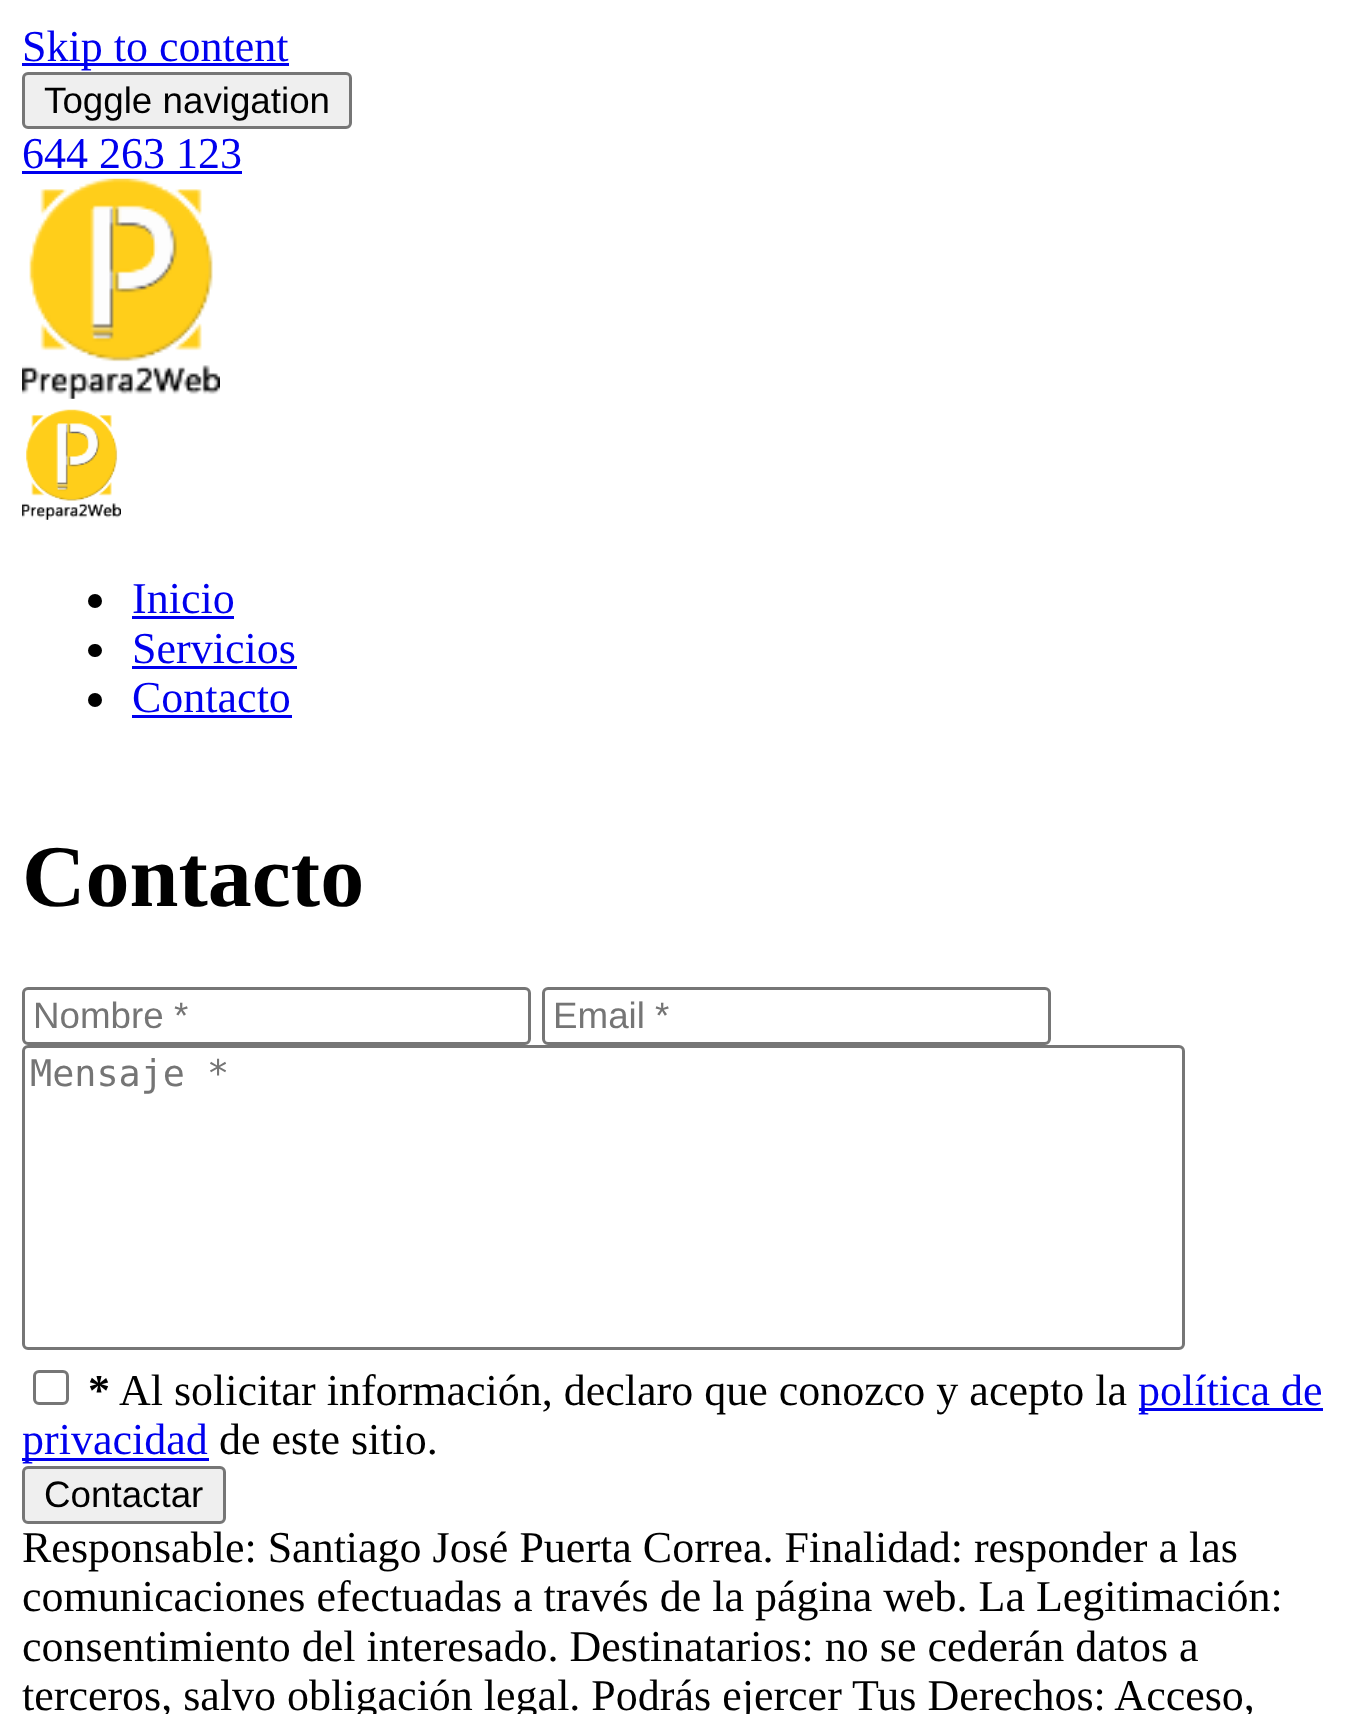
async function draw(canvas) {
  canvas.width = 1348;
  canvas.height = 1714;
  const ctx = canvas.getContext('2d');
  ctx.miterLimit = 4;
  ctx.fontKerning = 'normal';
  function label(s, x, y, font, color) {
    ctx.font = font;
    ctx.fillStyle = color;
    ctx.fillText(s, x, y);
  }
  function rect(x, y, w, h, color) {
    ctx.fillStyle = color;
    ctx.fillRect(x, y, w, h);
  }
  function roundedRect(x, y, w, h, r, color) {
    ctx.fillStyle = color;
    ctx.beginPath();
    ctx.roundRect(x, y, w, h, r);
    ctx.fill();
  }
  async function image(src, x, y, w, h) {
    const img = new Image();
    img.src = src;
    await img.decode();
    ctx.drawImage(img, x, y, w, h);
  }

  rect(0, 0, 1348, 1714, '#fff');
  rect(22, 63, 267, 3, '#00e');
  label('Skip to content', 22, 61, '44px Liberation Serif', '#00e');
  ctx.fillStyle = '#efefef';
  ctx.beginPath();
  ctx.roundRect(23.5, 73.5, 327, 54, 4.5);
  ctx.fill();
  ctx.strokeStyle = '#767676';
  ctx.lineWidth = 3;
  ctx.stroke();
  label('Toggle navigation', 44, 113, '36.75px Liberation Sans', '#000');
  label('644 263 123', 22, 168, '44px Liberation Serif', '#00e');
  rect(22, 171, 220, 3, '#00e');
  await image('assets/img1.png', 22, 178, 198, 221);
  await image('assets/img2.png', 22, 409, 99, 111);
  ctx.fillStyle = '#000';
  ctx.beginPath();
  ctx.arc(95, 601, 7, 0, 2 * Math.PI);
  ctx.fill();
  label('Inicio', 132, 613, '44px Liberation Serif', '#00e');
  rect(132, 616, 102, 3, '#00e');
  roundedRect(88, 644, 14, 13, 6.5, '#000');
  label('Servicios', 132, 663, '44px Liberation Serif', '#00e');
  rect(132, 666, 165, 3, '#00e');
  ctx.fillStyle = '#000';
  ctx.beginPath();
  ctx.arc(95, 700, 7, 0, 2 * Math.PI);
  ctx.fill();
  label('Contacto', 132, 712, '44px Liberation Serif', '#00e');
  rect(132, 715, 160, 3, '#00e');
  label('Contacto', 22, 906, 'bold 88px Liberation Serif', '#000');
  ctx.beginPath();
  ctx.roundRect(23.5, 988.5, 506, 55, 4.5);
  ctx.stroke();
  label('Nombre *', 33, 1028, '36.75px Liberation Sans', '#757575');
  ctx.beginPath();
  ctx.roundRect(543.5, 988.5, 506, 55, 4.5);
  ctx.stroke();
  label('Email *', 553, 1028, '36.75px Liberation Sans', '#757575');
  ctx.beginPath();
  ctx.roundRect(23.5, 1046.5, 1160, 302, 4.5);
  ctx.stroke();
  label('Mensaje *', 30, 1086, '36.75px DejaVu Sans Mono', '#757575');
  ctx.beginPath();
  ctx.roundRect(34.5, 1371.5, 33, 32, 4.5);
  ctx.stroke();
  label('*', 88, 1405, 'bold 44px Liberation Serif', '#000');
  label('Al solicitar información, declaro que conozco y acepto la', 119, 1405, '44px Liberation Serif', '#000');
  rect(1139, 1408, 184, 3, '#00e');
  label('política de', 1138, 1405, '44px Liberation Serif', '#00e');
  rect(22, 1458, 187, 3, '#00e');
  label('privacidad', 22, 1454, '44px Liberation Serif', '#00e');
  label('de este sitio.', 219, 1454, '44px Liberation Serif', '#000');
  ctx.fillStyle = '#efefef';
  ctx.beginPath();
  ctx.roundRect(23.5, 1467.5, 201, 55, 4.5);
  ctx.fill();
  ctx.stroke();
  label('Contactar', 44, 1507, '36.75px Liberation Sans', '#000');
  label('Responsable: Santiago José Puerta Correa. Finalidad: responder a las', 22, 1562, '44px Liberation Serif', '#000');
  label('comunicaciones efectuadas a través de la página web. La Legitimación:', 22, 1611, '44px Liberation Serif', '#000');
  label('consentimiento del interesado. Destinatarios: no se cederán datos a', 22, 1661, '44px Liberation Serif', '#000');
  label('terceros, salvo obligación legal. Podrás ejercer Tus Derechos: Acceso,', 22, 1710, '44px Liberation Serif', '#000');
}

draw(document.querySelector('canvas'));
